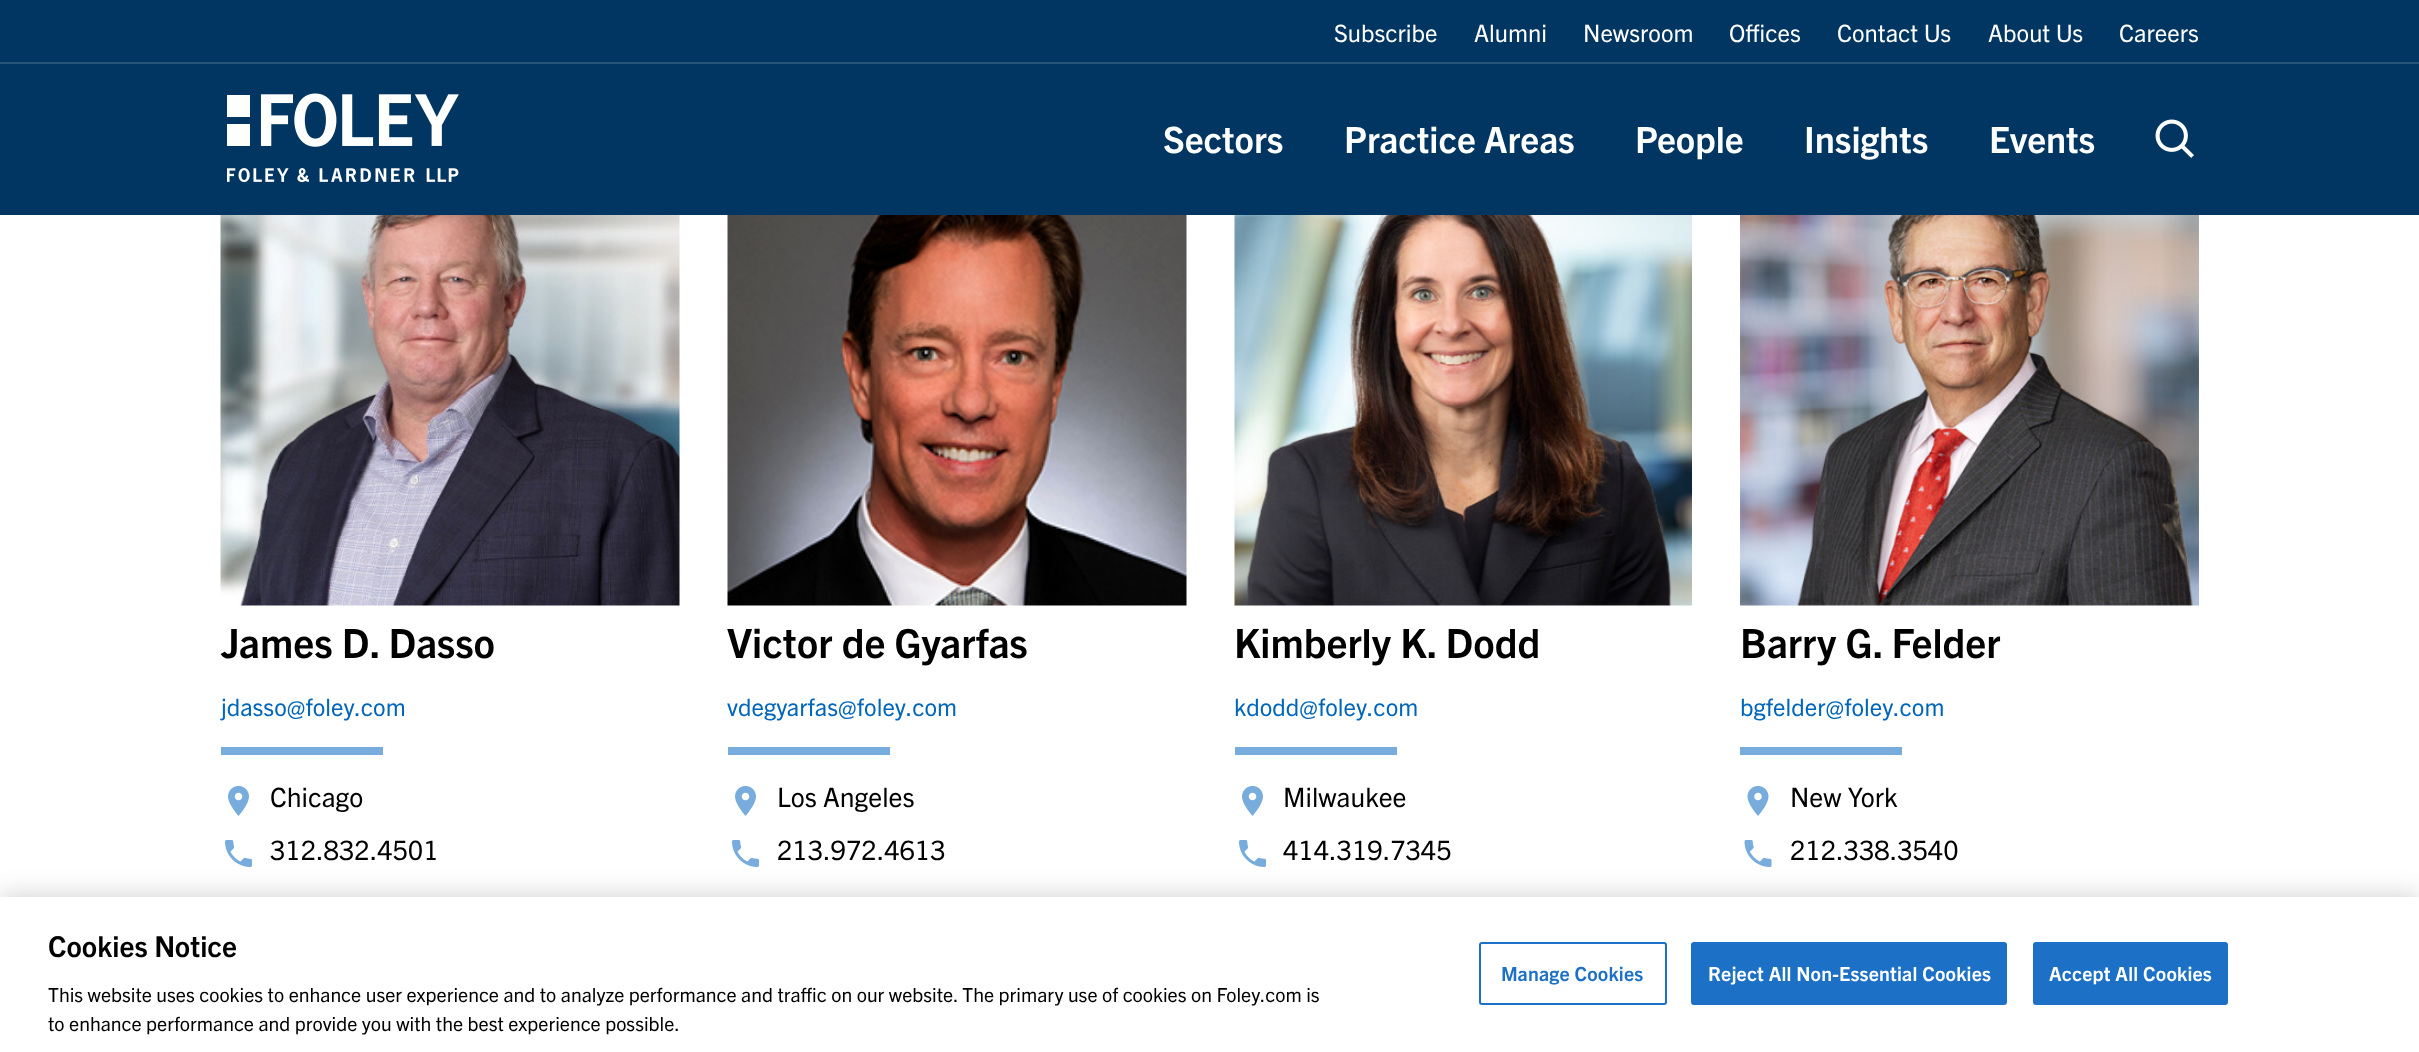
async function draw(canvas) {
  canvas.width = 2419;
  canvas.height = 1052;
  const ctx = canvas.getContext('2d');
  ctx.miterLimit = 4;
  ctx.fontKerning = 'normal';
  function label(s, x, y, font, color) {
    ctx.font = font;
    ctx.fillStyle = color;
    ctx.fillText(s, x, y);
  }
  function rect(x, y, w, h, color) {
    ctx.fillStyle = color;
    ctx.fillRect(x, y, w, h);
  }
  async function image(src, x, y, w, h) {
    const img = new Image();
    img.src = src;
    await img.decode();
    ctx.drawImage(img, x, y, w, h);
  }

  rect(0, 0, 2419, 1052, '#fff');
  rect(0, 0, 2419, 215, '#003661');
  label('Subscribe', 1334, 42, '24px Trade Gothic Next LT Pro', '#fff');
  label('Alumni', 1474, 42, '24px Trade Gothic Next LT Pro', '#fff');
  label('Newsroom', 1583, 42, '24px Trade Gothic Next LT Pro', '#fff');
  label('Offices', 1729, 42, '24px Trade Gothic Next LT Pro', '#fff');
  label('Contact Us', 1837, 42, '24px Trade Gothic Next LT Pro', '#fff');
  label('About Us', 1988, 42, '24px Trade Gothic Next LT Pro', '#fff');
  label('Careers', 2119, 42, '24px Trade Gothic Next LT Pro', '#fff');
  rect(0, 62, 2419, 2, '#265479');
  await image('assets/img1.png', 227, 93, 232, 90);
  label('Sectors', 1163, 153, 'bold 36.25px Trade Gothic Next LT Pro', '#fff');
  label('Practice Areas', 1344, 153, 'bold 36.25px Trade Gothic Next LT Pro', '#fff');
  label('People', 1635, 153, 'bold 36.25px Trade Gothic Next LT Pro', '#fff');
  label('Insights', 1804, 153, 'bold 36.25px Trade Gothic Next LT Pro', '#fff');
  label('Events', 1989, 153, 'bold 36.25px Trade Gothic Next LT Pro', '#fff');
  await image('assets/img2.png', 2155, 119, 39, 39);
  await image('assets/img3.png', 220, 215, 460, 391);
  label('James D. Dasso', 221, 658, 'bold 40.25px Trade Gothic Next LT Pro', '#000');
  label('jdasso@foley.com', 221, 716, '24px Trade Gothic Next LT Pro', '#0066ba');
  rect(221, 747, 162, 8, '#78acdd');
  await image('assets/img4.png', 228, 786, 21, 30);
  label('Chicago', 270, 807, '26.75px Trade Gothic Next LT Pro', '#000');
  await image('assets/img5.png', 225, 840, 27, 27);
  label('312.832.4501', 270, 860, '26.75px Trade Gothic Next LT Pro', '#000');
  await image('assets/img6.png', 727, 215, 460, 391);
  label('Victor de Gyarfas', 727, 658, 'bold 40.25px Trade Gothic Next LT Pro', '#000');
  label('vdegyarfas@foley.com', 727, 716, '24px Trade Gothic Next LT Pro', '#0066ba');
  rect(728, 747, 162, 8, '#78acdd');
  await image('assets/img4.png', 735, 786, 21, 30);
  label('Los Angeles', 777, 807, '26.75px Trade Gothic Next LT Pro', '#000');
  await image('assets/img5.png', 732, 840, 27, 27);
  label('213.972.4613', 777, 860, '26.75px Trade Gothic Next LT Pro', '#000');
  await image('assets/img7.png', 1234, 215, 458, 391);
  label('Kimberly K. Dodd', 1234, 658, 'bold 40.25px Trade Gothic Next LT Pro', '#000');
  label('kdodd@foley.com', 1234, 716, '24px Trade Gothic Next LT Pro', '#0066ba');
  rect(1235, 747, 162, 8, '#78acdd');
  await image('assets/img4.png', 1242, 786, 21, 30);
  label('Milwaukee', 1283, 807, '26.75px Trade Gothic Next LT Pro', '#000');
  await image('assets/img5.png', 1239, 840, 27, 27);
  label('414.319.7345', 1283, 860, '26.75px Trade Gothic Next LT Pro', '#000');
  await image('assets/img8.png', 1740, 215, 459, 391);
  label('Barry G. Felder', 1740, 658, 'bold 40.25px Trade Gothic Next LT Pro', '#000');
  label('bgfelder@foley.com', 1740, 716, '24px Trade Gothic Next LT Pro', '#0066ba');
  rect(1740, 747, 162, 8, '#78acdd');
  await image('assets/img9.png', 1747, 786, 22, 30);
  label('New York', 1790, 807, '26.75px Trade Gothic Next LT Pro', '#000');
  await image('assets/img10.png', 1744, 840, 28, 27);
  label('212.338.3540', 1790, 860, '26.75px Trade Gothic Next LT Pro', '#000');
  ctx.fillStyle = '#00000033';
  ctx.filter = 'blur(13.5px)';
  ctx.beginPath();
  ctx.rect(0, 897, 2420, 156);
  ctx.fill();
  ctx.filter = 'none';
  rect(0, 897, 2419, 155, '#fff');
  label('Cookies Notice', 48, 957, 'bold 28.75px Trade Gothic Next LT Pro', '#000');
  label('This website uses cookies to enhance user experience and to analyze performance and traffic on our website. The primary use of cookies on Foley.com is', 48, 1002, '19.5px Trade Gothic Next LT Pro', '#000');
  label('to enhance performance and provide you with the best experience possible.', 48, 1031, '19.5px Trade Gothic Next LT Pro', '#000');
  ctx.beginPath();
  ctx.roundRect(1480, 943, 186, 61, 2);
  ctx.strokeStyle = '#1c70c6';
  ctx.lineWidth = 2;
  ctx.stroke();
  ctx.letterSpacing = '0.2px';
  label('Manage Cookies', 1501, 981, 'bold 19.5px Trade Gothic Next LT Pro', '#1c70c6');
  ctx.beginPath();
  ctx.roundRect(1692, 943, 314, 61, 2);
  ctx.fill();
  ctx.stroke();
  label('Reject All Non-Essential Cookies', 1708, 981, 'bold 19.5px Trade Gothic Next LT Pro', '#fff');
  ctx.fillStyle = '#1c70c6';
  ctx.beginPath();
  ctx.roundRect(2034, 943, 193, 61, 2);
  ctx.fill();
  ctx.stroke();
  label('Accept All Cookies', 2049, 981, 'bold 19.5px Trade Gothic Next LT Pro', '#fff');
}

draw(document.querySelector('canvas'));
